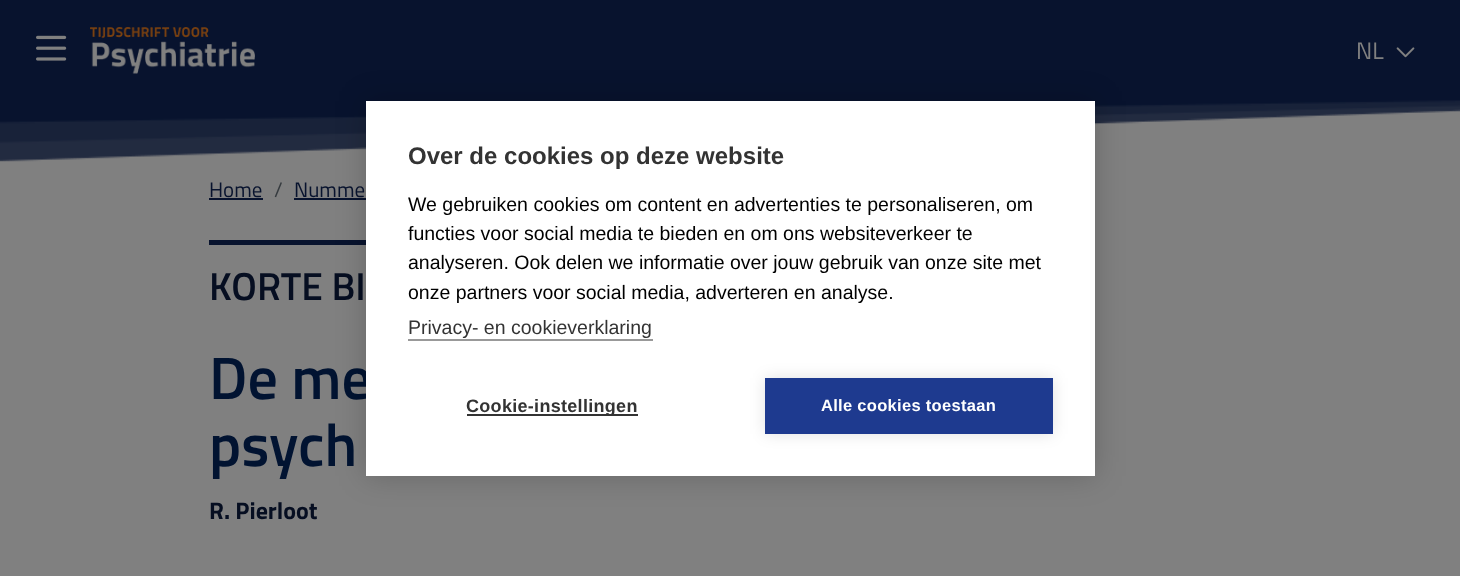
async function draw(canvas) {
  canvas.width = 1460;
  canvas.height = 576;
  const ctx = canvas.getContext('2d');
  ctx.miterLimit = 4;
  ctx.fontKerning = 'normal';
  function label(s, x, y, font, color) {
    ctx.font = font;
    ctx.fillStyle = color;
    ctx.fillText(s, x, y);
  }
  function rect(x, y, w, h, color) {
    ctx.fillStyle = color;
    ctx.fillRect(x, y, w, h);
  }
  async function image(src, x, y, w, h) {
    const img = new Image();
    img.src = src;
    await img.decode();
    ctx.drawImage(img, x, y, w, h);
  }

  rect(0, 0, 1460, 576, '#808080');
  rect(0, 0, 1460, 101, '#08132e');
  await image('assets/img1.png', 36, 35, 31, 26);
  await image('assets/img2.png', 90, 27, 165, 47);
  label('NL', 1356, 59, '24px Titillium Web', '#808080');
  await image('assets/img3.png', 1396, 47, 19, 11);
  await image('assets/img4.png', 0, 100, 1460, 62);
  label('Home', 209, 197, '21px Titillium Web', '#08132e');
  rect(209, 198, 54, 2, '#08132e');
  label('/', 274, 197, '21px Titillium Web', '#363b3f');
  label('Numme', 294, 197, '21px Titillium Web', '#08132e');
  rect(294, 198, 72, 2, '#08132e');
  rect(209, 240, 157, 5, '#08132e');
  label('KORTE BI', 209, 300, '600 39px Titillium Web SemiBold', '#060e21');
  label('De me', 209, 399, '600 60px Titillium Web SemiBold', '#011331');
  label('psych', 209, 466, '600 60px Titillium Web SemiBold', '#011331');
  label('R. Pierloot', 209, 519, 'bold 24px Titillium Web', '#060e21');
  ctx.fillStyle = '#00000033';
  ctx.filter = 'blur(15px)';
  ctx.beginPath();
  ctx.rect(366, 101, 729, 375);
  ctx.fill();
  ctx.filter = 'none';
  rect(366, 101, 729, 375, '#fff');
  label('Over de cookies op deze website', 408, 164, 'bold 24px Liberation Sans', '#333');
  label('We gebruiken cookies om content en advertenties te personaliseren, om', 408, 211, '19.5px Liberation Sans', '#000');
  label('functies voor social media te bieden en om ons websiteverkeer te', 408, 240, '19.5px Liberation Sans', '#000');
  label('analyseren. Ook delen we informatie over jouw gebruik van onze site met', 408, 269, '19.5px Liberation Sans', '#000');
  label('onze partners voor social media, adverteren en analyse.', 408, 299, '19.5px Liberation Sans', '#000');
  label('Privacy- en cookieverklaring', 408, 334, '19.5px Liberation Sans', '#333');
  rect(408, 339, 245, 2, '#999');
  rect(467, 414, 171, 2, '#333');
  ctx.letterSpacing = '0.3px';
  label('Cookie-instellingen', 466, 412, 'bold 18px Liberation Sans', '#333');
  ctx.fillStyle = '#0000001f';
  ctx.filter = 'blur(7.5px)';
  ctx.beginPath();
  ctx.rect(765, 378, 288, 56);
  ctx.fill();
  ctx.filter = 'none';
  rect(765, 378, 288, 56, '#1e3a8f');
  label('Alle cookies toestaan', 821, 411, 'bold 16.5px Liberation Sans', '#fff');
}

draw(document.querySelector('canvas'));
